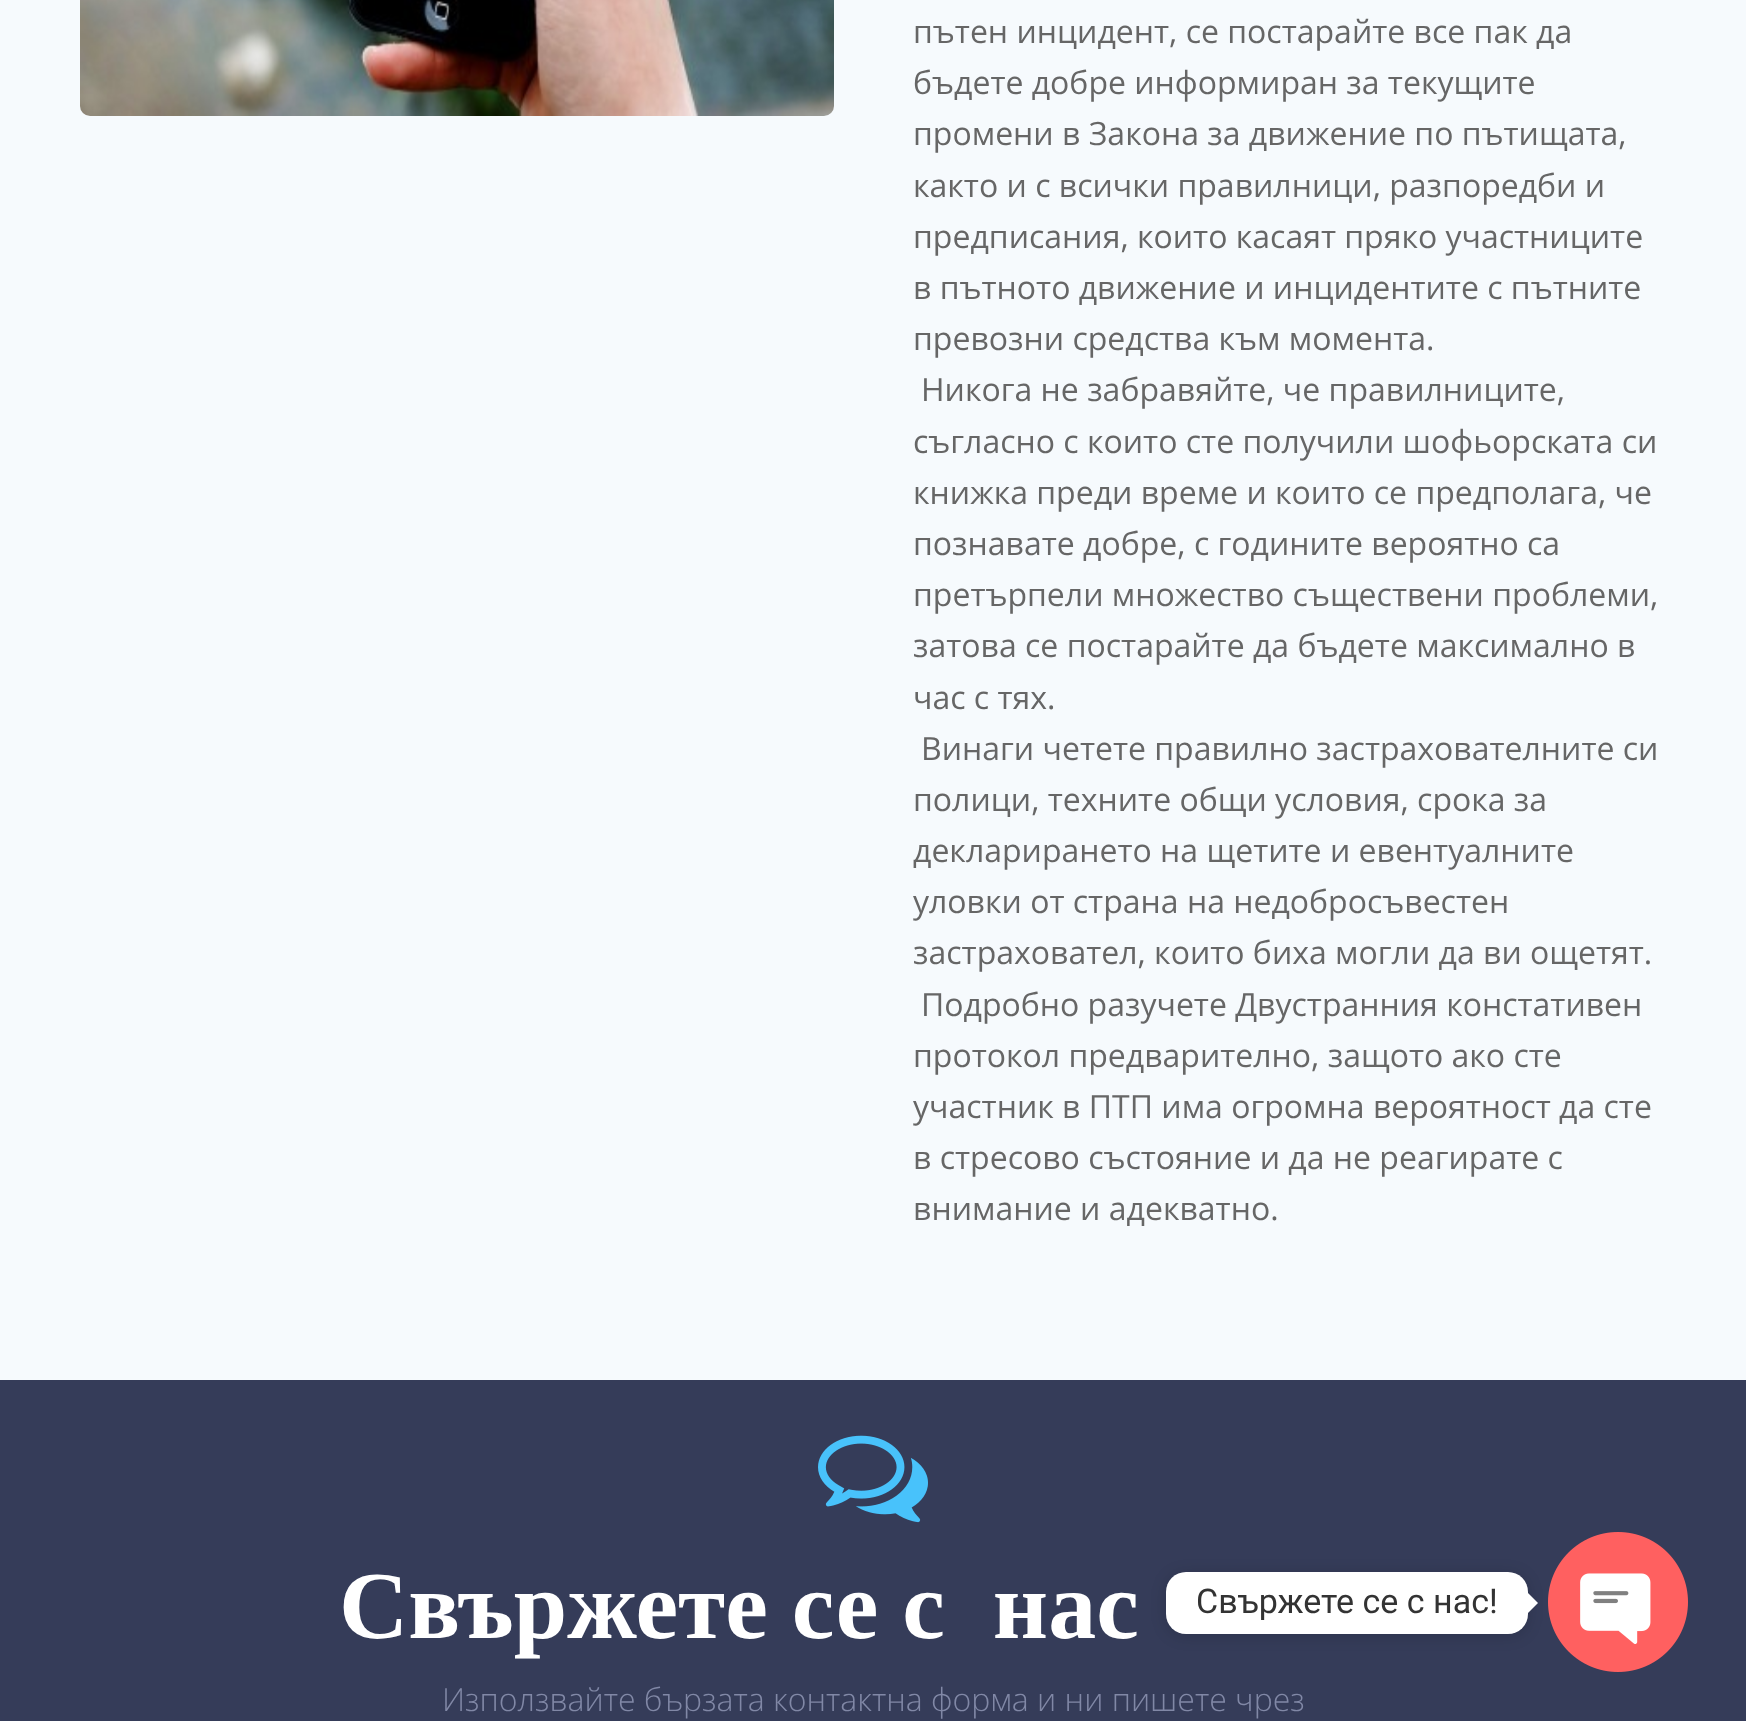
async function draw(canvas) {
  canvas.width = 1746;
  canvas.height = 1721;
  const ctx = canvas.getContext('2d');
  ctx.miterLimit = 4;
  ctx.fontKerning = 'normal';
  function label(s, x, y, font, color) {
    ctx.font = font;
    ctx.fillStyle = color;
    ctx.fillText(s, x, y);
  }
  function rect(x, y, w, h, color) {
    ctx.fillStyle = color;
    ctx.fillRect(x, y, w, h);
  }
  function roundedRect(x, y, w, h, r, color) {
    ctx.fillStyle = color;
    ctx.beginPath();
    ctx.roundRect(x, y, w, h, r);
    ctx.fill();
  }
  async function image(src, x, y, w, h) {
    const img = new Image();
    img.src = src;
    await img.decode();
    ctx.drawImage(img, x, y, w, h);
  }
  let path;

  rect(0, 0, 1746, 1721, '#f6fafd');
  await image('assets/img1.png', 80, 0, 754, 116);
  label('пътен инцидент, се постарайте все пак да', 913, 43, '32px Open Sans', '#666');
  label('бъдете добре информиран за текущите', 913, 94, '32px Open Sans', '#666');
  label('промени в Закона за движение по пътищата,', 913, 145, '32px Open Sans', '#666');
  label('както и с всички правилници, разпоредби и', 913, 197, '32px Open Sans', '#666');
  label('предписания, които касаят пряко участниците', 913, 248, '32px Open Sans', '#666');
  label('в пътното движение и инцидентите с пътните', 913, 299, '32px Open Sans', '#666');
  label('превозни средства към момента.', 913, 350, '32px Open Sans', '#666');
  label('Никога не забравяйте, че правилниците,', 921, 401, '32px Open Sans', '#666');
  label('съгласно с които сте получили шофьорската си', 913, 453, '32px Open Sans', '#666');
  label('книжка преди време и които се предполага, че', 913, 504, '32px Open Sans', '#666');
  label('познавате добре, с годините вероятно са', 913, 555, '32px Open Sans', '#666');
  label('претърпели множество съществени проблеми,', 913, 606, '32px Open Sans', '#666');
  label('затова се постарайте да бъдете максимално в', 913, 657, '32px Open Sans', '#666');
  label('час с тях.', 913, 709, '32px Open Sans', '#666');
  label('Винаги четете правилно застрахователните си', 921, 760, '32px Open Sans', '#666');
  label('полици, техните общи условия, срока за', 913, 811, '32px Open Sans', '#666');
  label('декларирането на щетите и евентуалните', 913, 862, '32px Open Sans', '#666');
  label('уловки от страна на недобросъвестен', 913, 913, '32px Open Sans', '#666');
  label('застраховател, които биха могли да ви ощетят.', 913, 964, '32px Open Sans', '#666');
  label('Подробно разучете Двустранния констативен', 921, 1016, '32px Open Sans', '#666');
  label('протокол предварително, защото ако сте', 913, 1067, '32px Open Sans', '#666');
  label('участник в ПТП има огромна вероятност да сте', 913, 1118, '32px Open Sans', '#666');
  label('в стресово състояние и да не реагирате с', 913, 1169, '32px Open Sans', '#666');
  label('внимание и адекватно.', 913, 1220, '32px Open Sans', '#666');
  rect(0, 1380, 1746, 341, '#353c59');
  await image('assets/img2.png', 818, 1435, 110, 88);
  label('Свържете се с  нас', 339, 1638, 'bold 96px Liberation Serif', '#fff');
  label('Използвайте бързата контактна форма и ни пишете чрез', 442, 1711, '300 32px Open Sans', '#8188a6');
  ctx.fillStyle = '#00000026';
  ctx.filter = 'blur(7.5px)';
  ctx.beginPath();
  ctx.roundRect(1166, 1574, 362, 62, 20);
  ctx.fill();
  ctx.filter = 'none';
  roundedRect(1166, 1572, 362, 62, 20, '#fff');
  label('Свържете се с нас!', 1196, 1613, '34px Roboto', '#333');
  ctx.fillStyle = '#fff';
  path = new Path2D('M1528 1613V1593L1538 1603Z');
  ctx.fill(path);
  await image('assets/img3.png', 1548, 1532, 140, 140);
}

draw(document.querySelector('canvas'));
